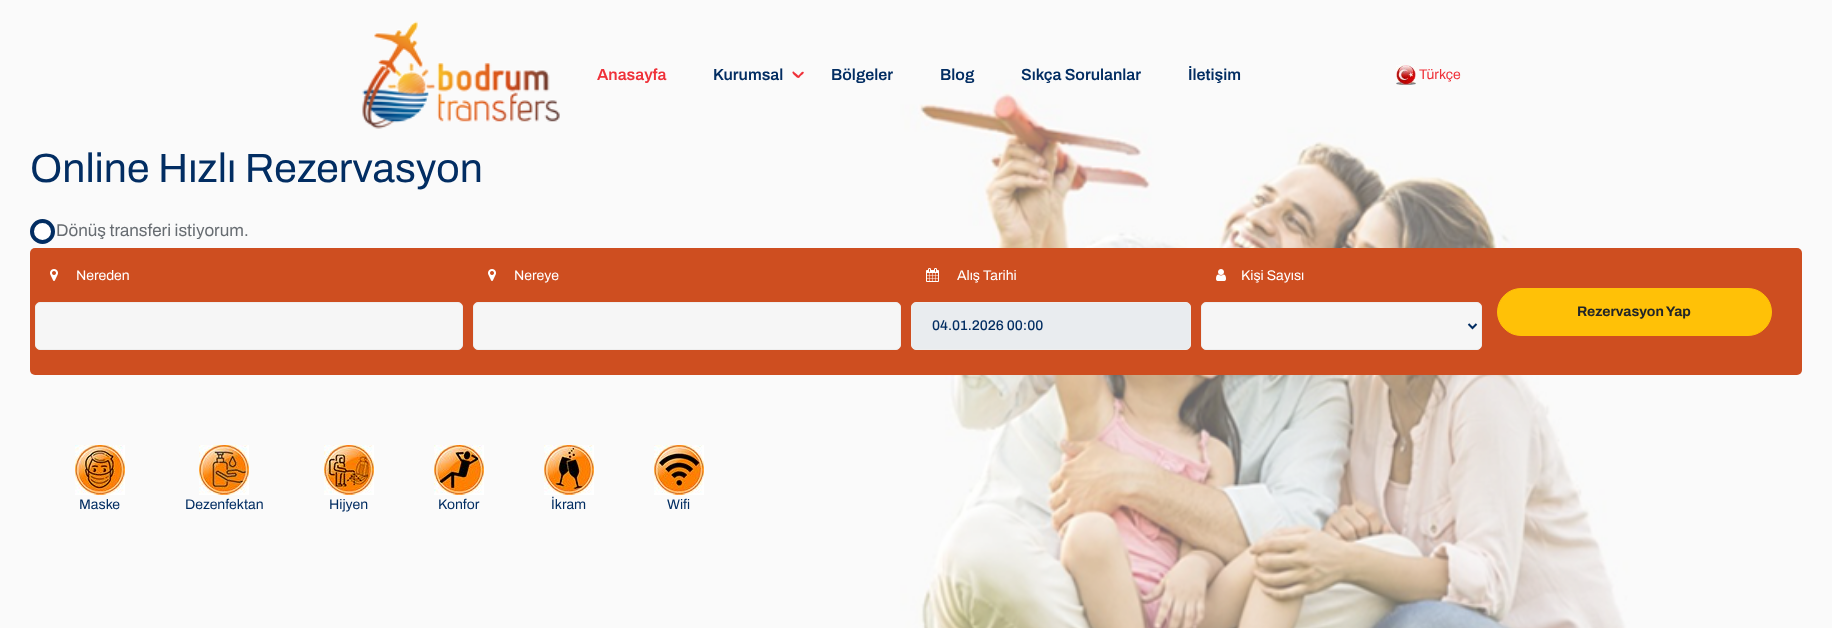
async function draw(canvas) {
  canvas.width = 1832;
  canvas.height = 628;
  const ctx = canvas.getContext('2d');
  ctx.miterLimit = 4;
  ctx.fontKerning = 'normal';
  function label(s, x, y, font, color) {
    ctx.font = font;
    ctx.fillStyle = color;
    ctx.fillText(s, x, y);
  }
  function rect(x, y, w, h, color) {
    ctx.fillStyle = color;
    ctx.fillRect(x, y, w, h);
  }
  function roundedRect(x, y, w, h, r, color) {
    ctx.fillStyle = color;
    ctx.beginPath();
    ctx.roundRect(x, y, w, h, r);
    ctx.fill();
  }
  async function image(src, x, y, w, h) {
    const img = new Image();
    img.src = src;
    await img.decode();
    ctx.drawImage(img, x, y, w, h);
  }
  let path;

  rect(0, 0, 1832, 628, '#fff');
  await image('assets/img3.png', 0, 0, 1832, 628);
  await image('assets/img1.png', 362, 21, 198, 108);
  label('Anasayfa', 597, 80, '600 16px Archivo', '#ef3139');
  label('Kurumsal', 713, 80, '600 16px Archivo', '#022d62');
  ctx.fillStyle = '#ef3139';
  path = new Path2D('M794 72L796.5 74C797 74.5 799.5 76 798.5 77.5C797.5 79 795 75.5 794 75L792.5 73C792 72 793.5 71 794 72Z');
  ctx.fill(path);
  path = new Path2D('M798 76L800 74C800.5 73.5 802 71 803.5 72C805 73 801 75.5 800.5 76L799 78C798 78 797 77 798 76Z');
  ctx.fill(path);
  label('Bölgeler', 831, 80, '600 16px Archivo', '#022d62');
  label('Blog', 940, 80, '600 16px Archivo', '#022d62');
  label('Sıkça Sorulanlar', 1021, 80, '600 16px Archivo', '#022d62');
  label('İletişim', 1188, 80, '600 16px Archivo', '#022d62');
  await image('assets/img2.png', 1396, 65, 20, 20);
  label('Türkçe', 1419, 79, '14px Archivo', '#ef3139');
  label('Online Hızlı Rezervasyon', 30, 182, '41px Archivo', '#022d62');
  ctx.fillStyle = '#fff';
  ctx.beginPath();
  ctx.arc(42.5, 231.5, 10.5, 0, 2 * Math.PI);
  ctx.fill();
  ctx.strokeStyle = '#022d62';
  ctx.lineWidth = 4;
  ctx.stroke();
  label('Dönüş transferi istiyorum.', 56, 236, '17px Archivo', '#676c71');
  roundedRect(30, 248, 1772, 127, 5, '#ce4e20');
  await image('assets/img4.png', 50, 269, 8, 12);
  label('Nereden', 76, 280, '14px Archivo', '#fff');
  ctx.fillStyle = '#f6f6f6';
  ctx.beginPath();
  ctx.roundRect(35.5, 302.5, 427, 47, 4.5);
  ctx.fill();
  ctx.strokeStyle = '#eee';
  ctx.lineWidth = 1;
  ctx.stroke();
  await image('assets/img4.png', 488, 269, 8, 12);
  label('Nereye', 514, 280, '14px Archivo', '#fff');
  ctx.fillStyle = '#f6f6f6';
  ctx.beginPath();
  ctx.roundRect(473.5, 302.5, 427, 47, 4.5);
  ctx.fill();
  ctx.stroke();
  await image('assets/img5.png', 926, 268, 13, 14);
  label('Alış Tarihi', 957, 280, '14px Archivo', '#fff');
  ctx.fillStyle = '#e9ecef';
  ctx.beginPath();
  ctx.roundRect(911.5, 302.5, 279, 47, 4.5);
  ctx.fill();
  ctx.stroke();
  label('04.01.2026 00:00', 932, 330, '500 14px Archivo', '#022d62');
  await image('assets/img6.png', 1216, 269, 10, 12);
  label('Kişi Sayısı', 1241, 280, '14px Archivo', '#fff');
  ctx.fillStyle = '#f6f6f6';
  ctx.beginPath();
  ctx.roundRect(1201.5, 302.5, 280, 47, 4.5);
  ctx.fill();
  ctx.stroke();
  path = new Path2D('M1468.5 324L1472.5 328L1476.5 324');
  ctx.strokeStyle = '#022d62';
  ctx.lineWidth = 2;
  ctx.stroke(path);
  ctx.fillStyle = '#ffc107';
  ctx.beginPath();
  ctx.roundRect(1497.5, 288.5, 274, 47, 23.5);
  ctx.fill();
  ctx.strokeStyle = '#ffc107';
  ctx.lineWidth = 1;
  ctx.stroke();
  label('Rezervasyon Yap', 1577, 316, 'bold 14px Archivo', '#212529');
  await image('assets/img7.png', 75, 445, 50, 50);
  label('Maske', 79, 509, '14px Archivo', '#022d62');
  await image('assets/img8.png', 199, 445, 50, 50);
  label('Dezenfektan', 185, 509, '14px Archivo', '#022d62');
  await image('assets/img9.png', 324, 445, 50, 50);
  label('Hijyen', 329, 509, '14px Archivo', '#022d62');
  await image('assets/img10.png', 434, 445, 50, 50);
  label('Konfor', 438, 509, '14px Archivo', '#022d62');
  await image('assets/img11.png', 544, 445, 50, 50);
  label('İkram', 551, 509, '14px Archivo', '#022d62');
  await image('assets/img12.png', 654, 445, 50, 50);
  label('Wifi', 667, 509, '14px Archivo', '#022d62');
}

draw(document.querySelector('canvas'));
